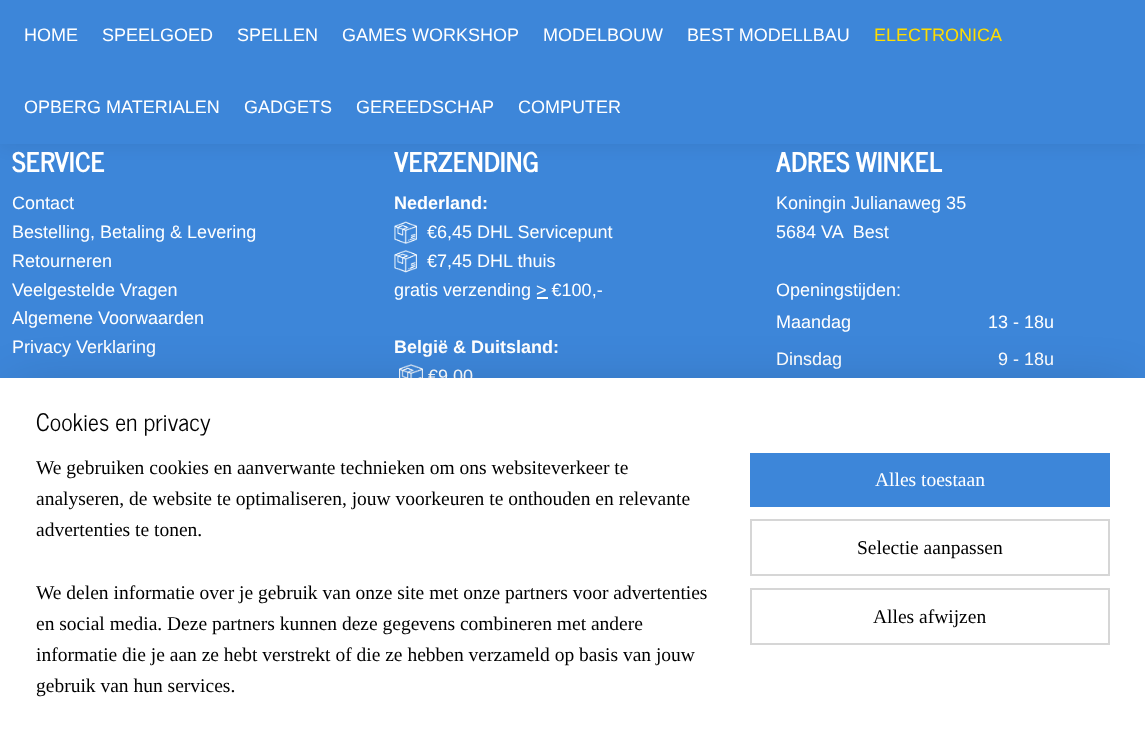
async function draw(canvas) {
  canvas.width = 1145;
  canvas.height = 737;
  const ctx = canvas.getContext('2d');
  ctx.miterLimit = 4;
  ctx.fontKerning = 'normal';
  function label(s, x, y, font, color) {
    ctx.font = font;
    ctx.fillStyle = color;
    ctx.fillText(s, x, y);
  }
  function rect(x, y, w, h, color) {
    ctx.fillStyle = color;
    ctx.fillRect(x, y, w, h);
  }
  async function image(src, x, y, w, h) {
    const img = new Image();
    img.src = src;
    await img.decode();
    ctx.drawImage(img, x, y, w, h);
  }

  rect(0, 0, 1145, 737, '#3d86d9');
  ctx.fillStyle = '#00000014';
  ctx.filter = 'blur(9px)';
  ctx.beginPath();
  ctx.rect(0, 0, 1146, 144);
  ctx.fill();
  ctx.filter = 'none';
  rect(0, 0, 1145, 144, '#3d86d9');
  label('HOME', 24, 41, '18px Liberation Sans', '#fff');
  label('SPEELGOED', 102, 41, '18px Liberation Sans', '#fff');
  label('SPELLEN', 237, 41, '18px Liberation Sans', '#fff');
  label('GAMES WORKSHOP', 342, 41, '18px Liberation Sans', '#fff');
  label('MODELBOUW', 543, 41, '18px Liberation Sans', '#fff');
  label('BEST MODELLBAU', 687, 41, '18px Liberation Sans', '#fff');
  label('ELECTRONICA', 874, 41, '18px Liberation Sans', '#fd0');
  label('OPBERG MATERIALEN', 24, 113, '18px Liberation Sans', '#fff');
  label('GADGETS', 244, 113, '18px Liberation Sans', '#fff');
  label('GEREEDSCHAP', 356, 113, '18px Liberation Sans', '#fff');
  label('COMPUTER', 518, 113, '18px Liberation Sans', '#fff');
  label('SERVICE', 12, 172, 'bold 27px News Cycle', '#fff');
  label('Contact', 12, 209, '18px Liberation Sans', '#fff');
  label('Bestelling, Betaling & Levering', 12, 238, '18px Liberation Sans', '#fff');
  label('Retourneren', 12, 267, '18px Liberation Sans', '#fff');
  label('Veelgestelde Vragen', 12, 296, '18px Liberation Sans', '#fff');
  label('Algemene Voorwaarden', 12, 324, '18px Liberation Sans', '#fff');
  label('Privacy Verklaring', 12, 353, '18px Liberation Sans', '#fff');
  label('VERZENDING', 394, 172, 'bold 27px News Cycle', '#fff');
  label('Nederland:', 394, 209, 'bold 18px Liberation Sans', '#fff');
  await image('assets/img1.png', 394, 221, 23, 23);
  label('€6,45 DHL Servicepunt', 427, 238, '18px Liberation Sans', '#fff');
  await image('assets/img2.png', 394, 250, 23, 23);
  label('€7,45 DHL thuis', 427, 267, '18px Liberation Sans', '#fff');
  label('gratis verzending > €100,-', 394, 296, '18px Liberation Sans', '#fff');
  rect(537, 297, 11, 2, '#fff');
  label('België & Duitsland:', 394, 353, 'bold 18px Liberation Sans', '#fff');
  await image('assets/img3.png', 399, 364, 24, 14);
  label('€9,00', 428, 382, '18px Liberation Sans', '#fff');
  label('ADRES WINKEL', 776, 172, 'bold 27px News Cycle', '#fff');
  label('Koningin Julianaweg 35', 776, 209, '18px Liberation Sans', '#fff');
  label('5684 VA  Best', 776, 238, '18px Liberation Sans', '#fff');
  label('Openingstijden:', 776, 296, '18px Liberation Sans', '#fff');
  label('Maandag', 776, 328, '18px Liberation Sans', '#fff');
  label('13 - 18u', 988, 328, '18px Liberation Sans', '#fff');
  label('Dinsdag', 776, 365, '18px Liberation Sans', '#fff');
  label('9 - 18u', 998, 365, '18px Liberation Sans', '#fff');
  ctx.fillStyle = '#00000033';
  ctx.filter = 'blur(27px)';
  ctx.beginPath();
  ctx.rect(15, 393, 1116, 330);
  ctx.fill();
  ctx.filter = 'none';
  rect(0, 378, 1145, 359, '#fff');
  label('Cookies en privacy', 36, 431, '24px News Cycle', '#000');
  label('We gebruiken cookies en aanverwante technieken om ons websiteverkeer te', 36, 474, '19.5px Liberation Serif', '#000');
  label('analyseren, de website te optimaliseren, jouw voorkeuren te onthouden en relevante', 36, 505, '19.5px Liberation Serif', '#000');
  label('advertenties te tonen.', 36, 536, '19.5px Liberation Serif', '#000');
  label('We delen informatie over je gebruik van onze site met onze partners voor advertenties', 36, 599, '19.5px Liberation Serif', '#000');
  label('en social media. Deze partners kunnen deze gegevens combineren met andere', 36, 630, '19.5px Liberation Serif', '#000');
  label('informatie die je aan ze hebt verstrekt of die ze hebben verzameld op basis van jouw', 36, 661, '19.5px Liberation Serif', '#000');
  label('gebruik van hun services.', 36, 692, '19.5px Liberation Serif', '#000');
  rect(750, 453, 360, 54, '#3d86d9');
  label('Alles toestaan', 875, 486, '19.5px Liberation Serif', '#fff');
  ctx.strokeStyle = '#d6d6d6';
  ctx.lineWidth = 2;
  ctx.strokeRect(751, 520, 358, 55);
  label('Selectie aanpassen', 857, 554, '19.5px Liberation Serif', '#000');
  ctx.strokeRect(751, 589, 358, 55);
  label('Alles afwijzen', 873, 623, '19.5px Liberation Serif', '#000');
}

draw(document.querySelector('canvas'));
